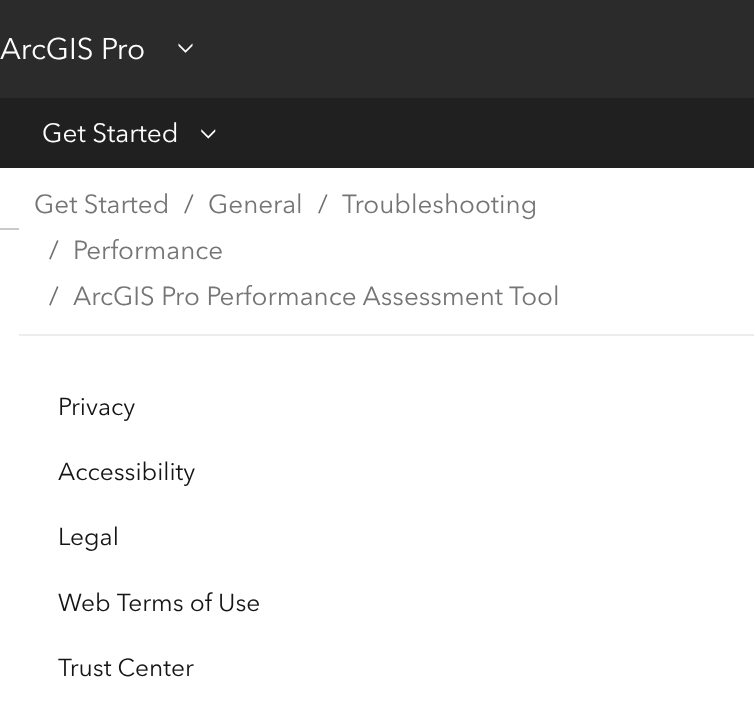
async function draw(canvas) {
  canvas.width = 754;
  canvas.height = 706;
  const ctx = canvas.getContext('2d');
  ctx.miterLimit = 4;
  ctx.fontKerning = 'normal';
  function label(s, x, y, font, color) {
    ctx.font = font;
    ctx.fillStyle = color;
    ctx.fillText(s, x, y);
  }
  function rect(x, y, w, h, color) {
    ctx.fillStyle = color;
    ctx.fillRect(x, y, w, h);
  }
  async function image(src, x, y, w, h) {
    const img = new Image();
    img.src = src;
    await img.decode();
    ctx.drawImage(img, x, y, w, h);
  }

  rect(0, 0, 754, 706, '#fff');
  rect(0, 0, 754, 98, '#2b2b2b');
  label('ArcGIS Pro', 0, 59, '29.75px "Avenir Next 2"', '#fff');
  await image('assets/img1.png', 178, 43, 15, 10);
  rect(0, 98, 754, 70, '#202020');
  label('Get Started', 42, 142, '26.25px "Avenir Next 2"', '#fff');
  await image('assets/img2.png', 201, 129, 15, 10);
  rect(19, 334, 735, 2, '#ededed');
  label('Get Started', 34, 213, '26px "Avenir Next 2"', '#757575');
  label('/', 184, 213, '26px "Avenir Next 2"', '#6e6e6e');
  label('General', 208, 213, '26px "Avenir Next 2"', '#757575');
  label('/', 318, 213, '26px "Avenir Next 2"', '#6e6e6e');
  label('Troubleshooting', 342, 213, '26px "Avenir Next 2"', '#757575');
  label('/', 49, 259, '26px "Avenir Next 2"', '#6e6e6e');
  label('Performance', 73, 259, '26px "Avenir Next 2"', '#757575');
  label('/', 49, 305, '26px "Avenir Next 2"', '#6e6e6e');
  label('ArcGIS Pro Performance Assessment Tool', 73, 305, '26px "Avenir Next 2"', '#757575');
  rect(0, 228, 19, 2, '#cacaca');
  label('Privacy', 58, 415, '24.5px Avenir Next', '#151515');
  label('Accessibility', 58, 480, '24.5px Avenir Next', '#151515');
  label('Legal', 58, 545, '24.5px Avenir Next', '#151515');
  label('Web Terms of Use', 58, 611, '24.5px Avenir Next', '#151515');
  label('Trust Center', 58, 676, '24.5px Avenir Next', '#151515');
}

draw(document.querySelector('canvas'));
